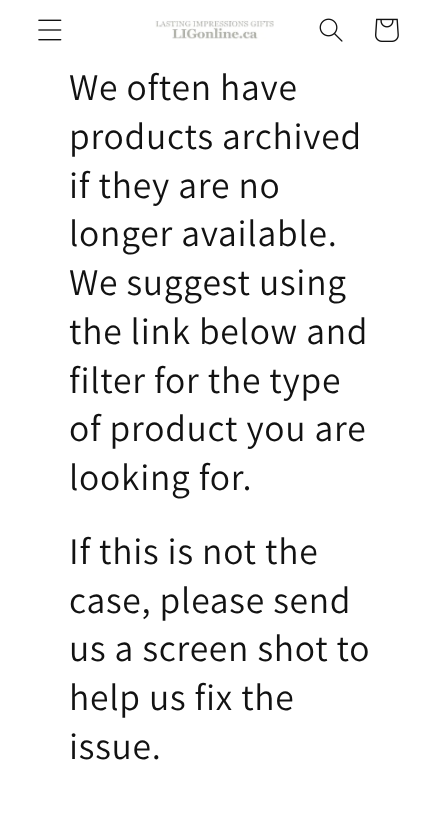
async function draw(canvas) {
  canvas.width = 446;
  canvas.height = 817;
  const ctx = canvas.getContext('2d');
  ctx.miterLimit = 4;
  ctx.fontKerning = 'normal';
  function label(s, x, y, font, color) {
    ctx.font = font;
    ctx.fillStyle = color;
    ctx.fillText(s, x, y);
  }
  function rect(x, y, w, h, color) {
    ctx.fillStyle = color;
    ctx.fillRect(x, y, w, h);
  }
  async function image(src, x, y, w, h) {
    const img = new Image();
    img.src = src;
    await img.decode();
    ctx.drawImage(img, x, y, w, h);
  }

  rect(0, 0, 446, 817, '#fff');
  await image('assets/img1.png', 38, 19, 24, 22);
  await image('assets/img2.png', 155, 20, 119, 20);
  await image('assets/img3.png', 319, 18, 24, 24);
  await image('assets/img4.png', 375, 18, 24, 24);
  ctx.letterSpacing = '0.75px';
  label('We often have', 69, 100, '37.5px Assistant', '#121212');
  label('products archived', 69, 149, '37.5px Assistant', '#121212');
  label('if they are no', 69, 198, '37.5px Assistant', '#121212');
  label('longer available.', 69, 246, '37.5px Assistant', '#121212');
  label('We suggest using', 69, 295, '37.5px Assistant', '#121212');
  label('the link below and', 69, 344, '37.5px Assistant', '#121212');
  label('filter for the type', 69, 393, '37.5px Assistant', '#121212');
  label('of product you are', 69, 441, '37.5px Assistant', '#121212');
  label('looking for.', 69, 490, '37.5px Assistant', '#121212');
  label('If this is not the', 69, 564, '37.5px Assistant', '#121212');
  label('case, please send', 69, 613, '37.5px Assistant', '#121212');
  label('us a screen shot to', 69, 661, '37.5px Assistant', '#121212');
  label('help us fix the', 69, 710, '37.5px Assistant', '#121212');
  label('issue.', 69, 759, '37.5px Assistant', '#121212');
}

draw(document.querySelector('canvas'));
